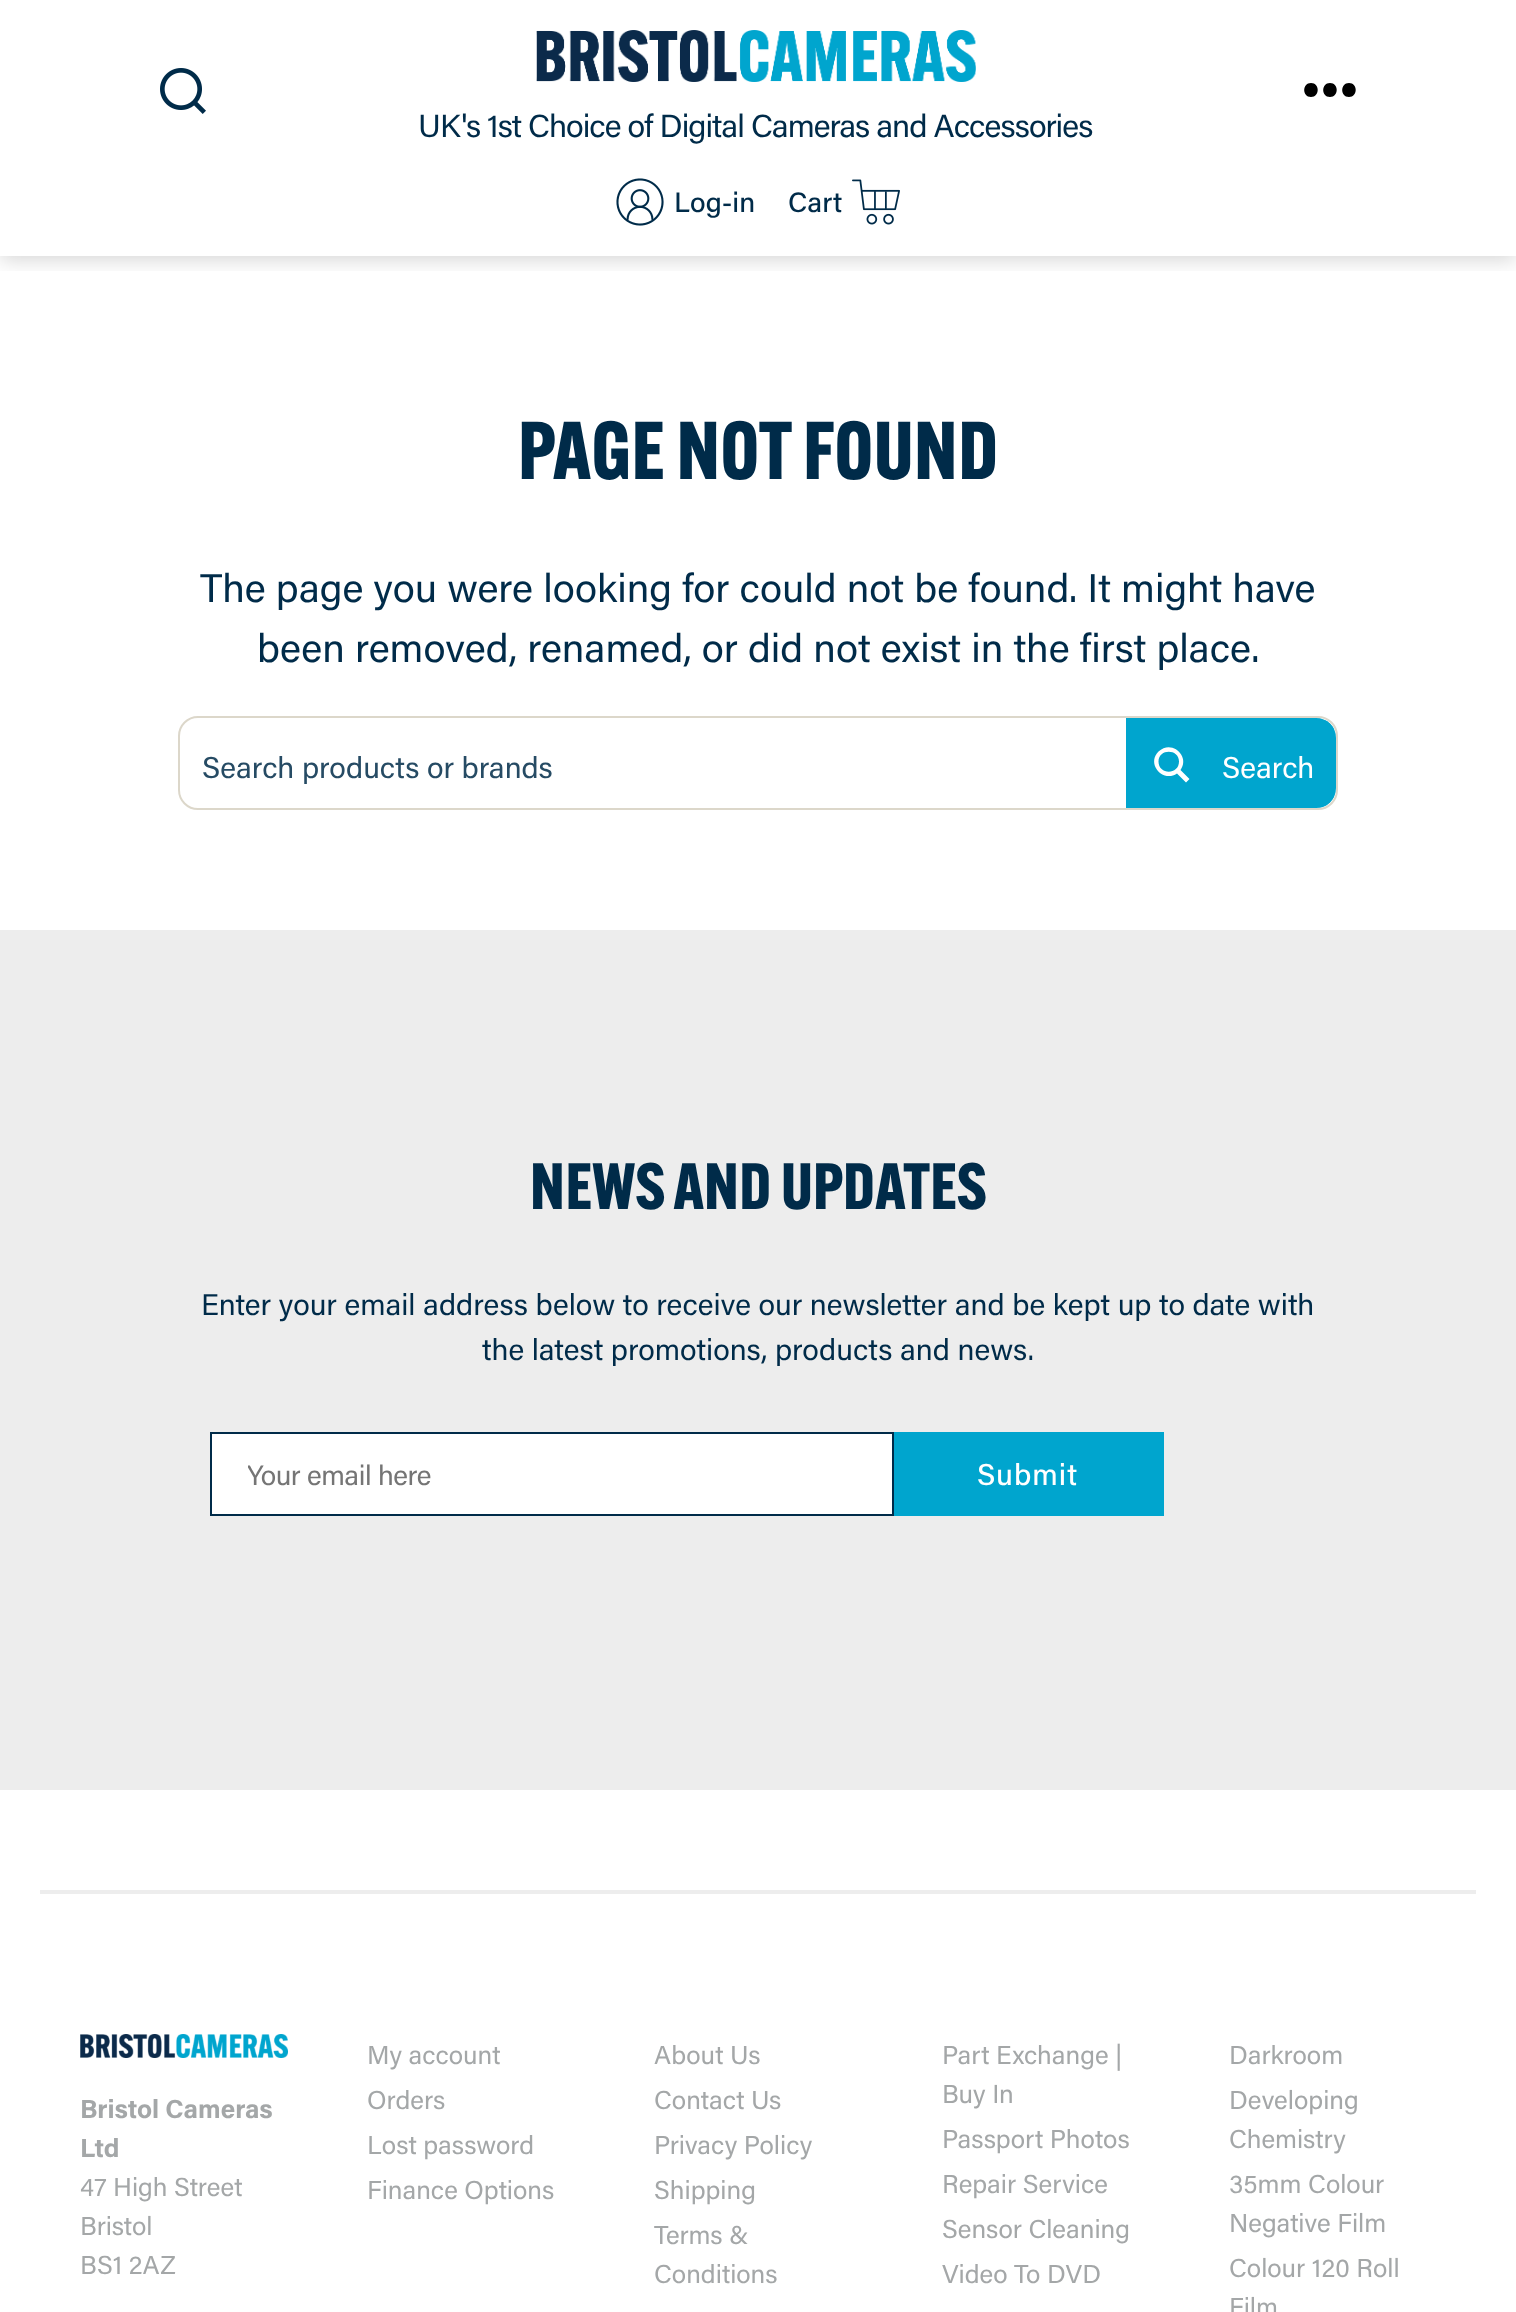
async function draw(canvas) {
  canvas.width = 1516;
  canvas.height = 2312;
  const ctx = canvas.getContext('2d');
  ctx.miterLimit = 4;
  ctx.fontKerning = 'normal';
  function label(s, x, y, font, color) {
    ctx.font = font;
    ctx.fillStyle = color;
    ctx.fillText(s, x, y);
  }
  function rect(x, y, w, h, color) {
    ctx.fillStyle = color;
    ctx.fillRect(x, y, w, h);
  }
  async function image(src, x, y, w, h) {
    const img = new Image();
    img.src = src;
    await img.decode();
    ctx.drawImage(img, x, y, w, h);
  }
  let path;

  rect(0, 0, 1516, 2312, '#fff');
  ctx.save();
  ctx.beginPath();
  ctx.rect(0, 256, 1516, 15);
  ctx.clip();
  ctx.fillStyle = '#00000029';
  ctx.filter = 'blur(10px)';
  ctx.beginPath();
  ctx.rect(0, 4, 1516, 256);
  ctx.fill();
  ctx.filter = 'none';
  ctx.restore();
  await image('assets/img1.png', 160, 68, 46, 46);
  ctx.fillStyle = '#000';
  path = new Path2D('M1311 97C1302 97 1302 83 1311 83C1320 83 1320 97 1311 97ZM1330 97C1321 97 1321 83 1330 83C1339 83 1339 97 1330 97ZM1349 97C1340 97 1340 83 1349 83C1358 83 1358 97 1349 97Z');
  ctx.fill(path, 'evenodd');
  await image('assets/img2.png', 536, 30, 440, 52);
  ctx.letterSpacing = '-1px';
  label('UK\'s 1st Choice of Digital Cameras and Accessories', 418, 137, '32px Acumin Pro', '#002b49');
  await image('assets/img3.png', 616, 178, 48, 48);
  ctx.letterSpacing = '0px';
  label('Log-in', 674, 212, '500 28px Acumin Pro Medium', '#002b49');
  label('Cart', 788, 212, '500 28px Acumin Pro Medium', '#002b49');
  await image('assets/img4.png', 852, 179, 48, 46);
  label('PAGE NOT FOUND', 518, 479, 'bold 80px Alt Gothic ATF', '#002b49');
  label('The page you were looking for could not be found. It might have', 200, 602, '40px Acumin Pro', '#002b49');
  label('been removed, renamed, or did not exist in the first place.', 257, 662, '40px Acumin Pro', '#002b49');
  ctx.beginPath();
  ctx.roundRect(179, 717, 1158, 92, 19);
  ctx.strokeStyle = '#dcd7ca';
  ctx.lineWidth = 2;
  ctx.stroke();
  label('Search products or brands', 202, 778, '30px Acumin Pro', '#264b64');
  ctx.save();
  ctx.beginPath();
  ctx.roundRect(1126, 718, 210, 90, [0, 20, 20, 0]);
  ctx.clip();
  rect(1128, 720, 206, 86, '#00a5ce');
  ctx.restore();
  ctx.beginPath();
  ctx.roundRect(1127, 719, 208, 88, [0, 19, 19, 0]);
  ctx.strokeStyle = '#00a5ce';
  ctx.stroke();
  ctx.fillStyle = '#fff';
  path = new Path2D('M1189.5 779L1180.5 770C1190.5 756 1171.5 739 1158.5 751.5C1146 764 1163 783 1177 773.5L1186 782.5ZM1158.5 761.5C1158.5 748.5 1179 748.5 1179 761.5C1179 775 1158.5 775 1158.5 761.5Z');
  ctx.fill(path);
  label('Search', 1222, 778, '30px Acumin Pro', '#fff');
  rect(0, 930, 1516, 860, '#ededed');
  label('NEWS AND UPDATES', 530, 1209, 'bold 64px Alt Gothic ATF', '#002b49');
  label('Enter your email address below to receive our newsletter and be kept up to date with', 201, 1315, '30px Acumin Pro', '#002b49');
  label('the latest promotions, products and news.', 482, 1360, '30px Acumin Pro', '#002b49');
  ctx.fillStyle = '#fff';
  ctx.beginPath();
  ctx.rect(211, 1433, 682, 82);
  ctx.fill();
  ctx.strokeStyle = '#002b49';
  ctx.stroke();
  ctx.save();
  ctx.beginPath();
  ctx.rect(248, 1454, 608, 40);
  ctx.clip();
  ctx.letterSpacing = '-0.4px';
  label('Your email here', 247, 1485, '28px Acumin Pro', '#757575');
  ctx.restore();
  rect(894, 1432, 270, 84, '#00a5ce');
  ctx.letterSpacing = '1px';
  label('Submit', 977, 1485, '500 30px Acumin Pro Medium', '#fff');
  rect(40, 1890, 1436, 4, '#ededed');
  await image('assets/img5.png', 80, 2034, 208, 24);
  ctx.letterSpacing = '0px';
  label('Bristol Cameras', 80, 2118, 'bold 26px Acumin Pro', '#a4a7a8');
  label('Ltd', 80, 2157, 'bold 26px Acumin Pro', '#a4a7a8');
  label('47 High Street', 80, 2196, '26px Acumin Pro', '#a4a7a8');
  label('Bristol', 80, 2235, '26px Acumin Pro', '#a4a7a8');
  label('BS1 2AZ', 80, 2274, '26px Acumin Pro', '#a4a7a8');
  label('My account', 367, 2064, '26px Acumin Pro', '#a4a7a8');
  label('Orders', 367, 2109, '26px Acumin Pro', '#a4a7a8');
  label('Lost password', 367, 2154, '26px Acumin Pro', '#a4a7a8');
  label('Finance Options', 367, 2199, '26px Acumin Pro', '#a4a7a8');
  label('About Us', 654, 2064, '26px Acumin Pro', '#a4a7a8');
  label('Contact Us', 654, 2109, '26px Acumin Pro', '#a4a7a8');
  label('Privacy Policy', 654, 2154, '26px Acumin Pro', '#a4a7a8');
  label('Shipping', 654, 2199, '26px Acumin Pro', '#a4a7a8');
  label('Terms &', 654, 2244, '26px Acumin Pro', '#a4a7a8');
  label('Conditions', 654, 2283, '26px Acumin Pro', '#a4a7a8');
  label('Part Exchange |', 942, 2064, '26px Acumin Pro', '#a4a7a8');
  label('Buy In', 942, 2103, '26px Acumin Pro', '#a4a7a8');
  label('Passport Photos', 942, 2148, '26px Acumin Pro', '#a4a7a8');
  label('Repair Service', 942, 2193, '26px Acumin Pro', '#a4a7a8');
  label('Sensor Cleaning', 942, 2238, '26px Acumin Pro', '#a4a7a8');
  label('Video To DVD', 942, 2283, '26px Acumin Pro', '#a4a7a8');
  label('Darkroom', 1229, 2064, '26px Acumin Pro', '#a4a7a8');
  label('Developing', 1229, 2109, '26px Acumin Pro', '#a4a7a8');
  label('Chemistry', 1229, 2148, '26px Acumin Pro', '#a4a7a8');
  label('35mm Colour', 1229, 2193, '26px Acumin Pro', '#a4a7a8');
  label('Negative Film', 1229, 2232, '26px Acumin Pro', '#a4a7a8');
  label('Colour 120 Roll', 1229, 2277, '26px Acumin Pro', '#a4a7a8');
  label('Film', 1229, 2316, '26px Acumin Pro', '#a4a7a8');
}

draw(document.querySelector('canvas'));
